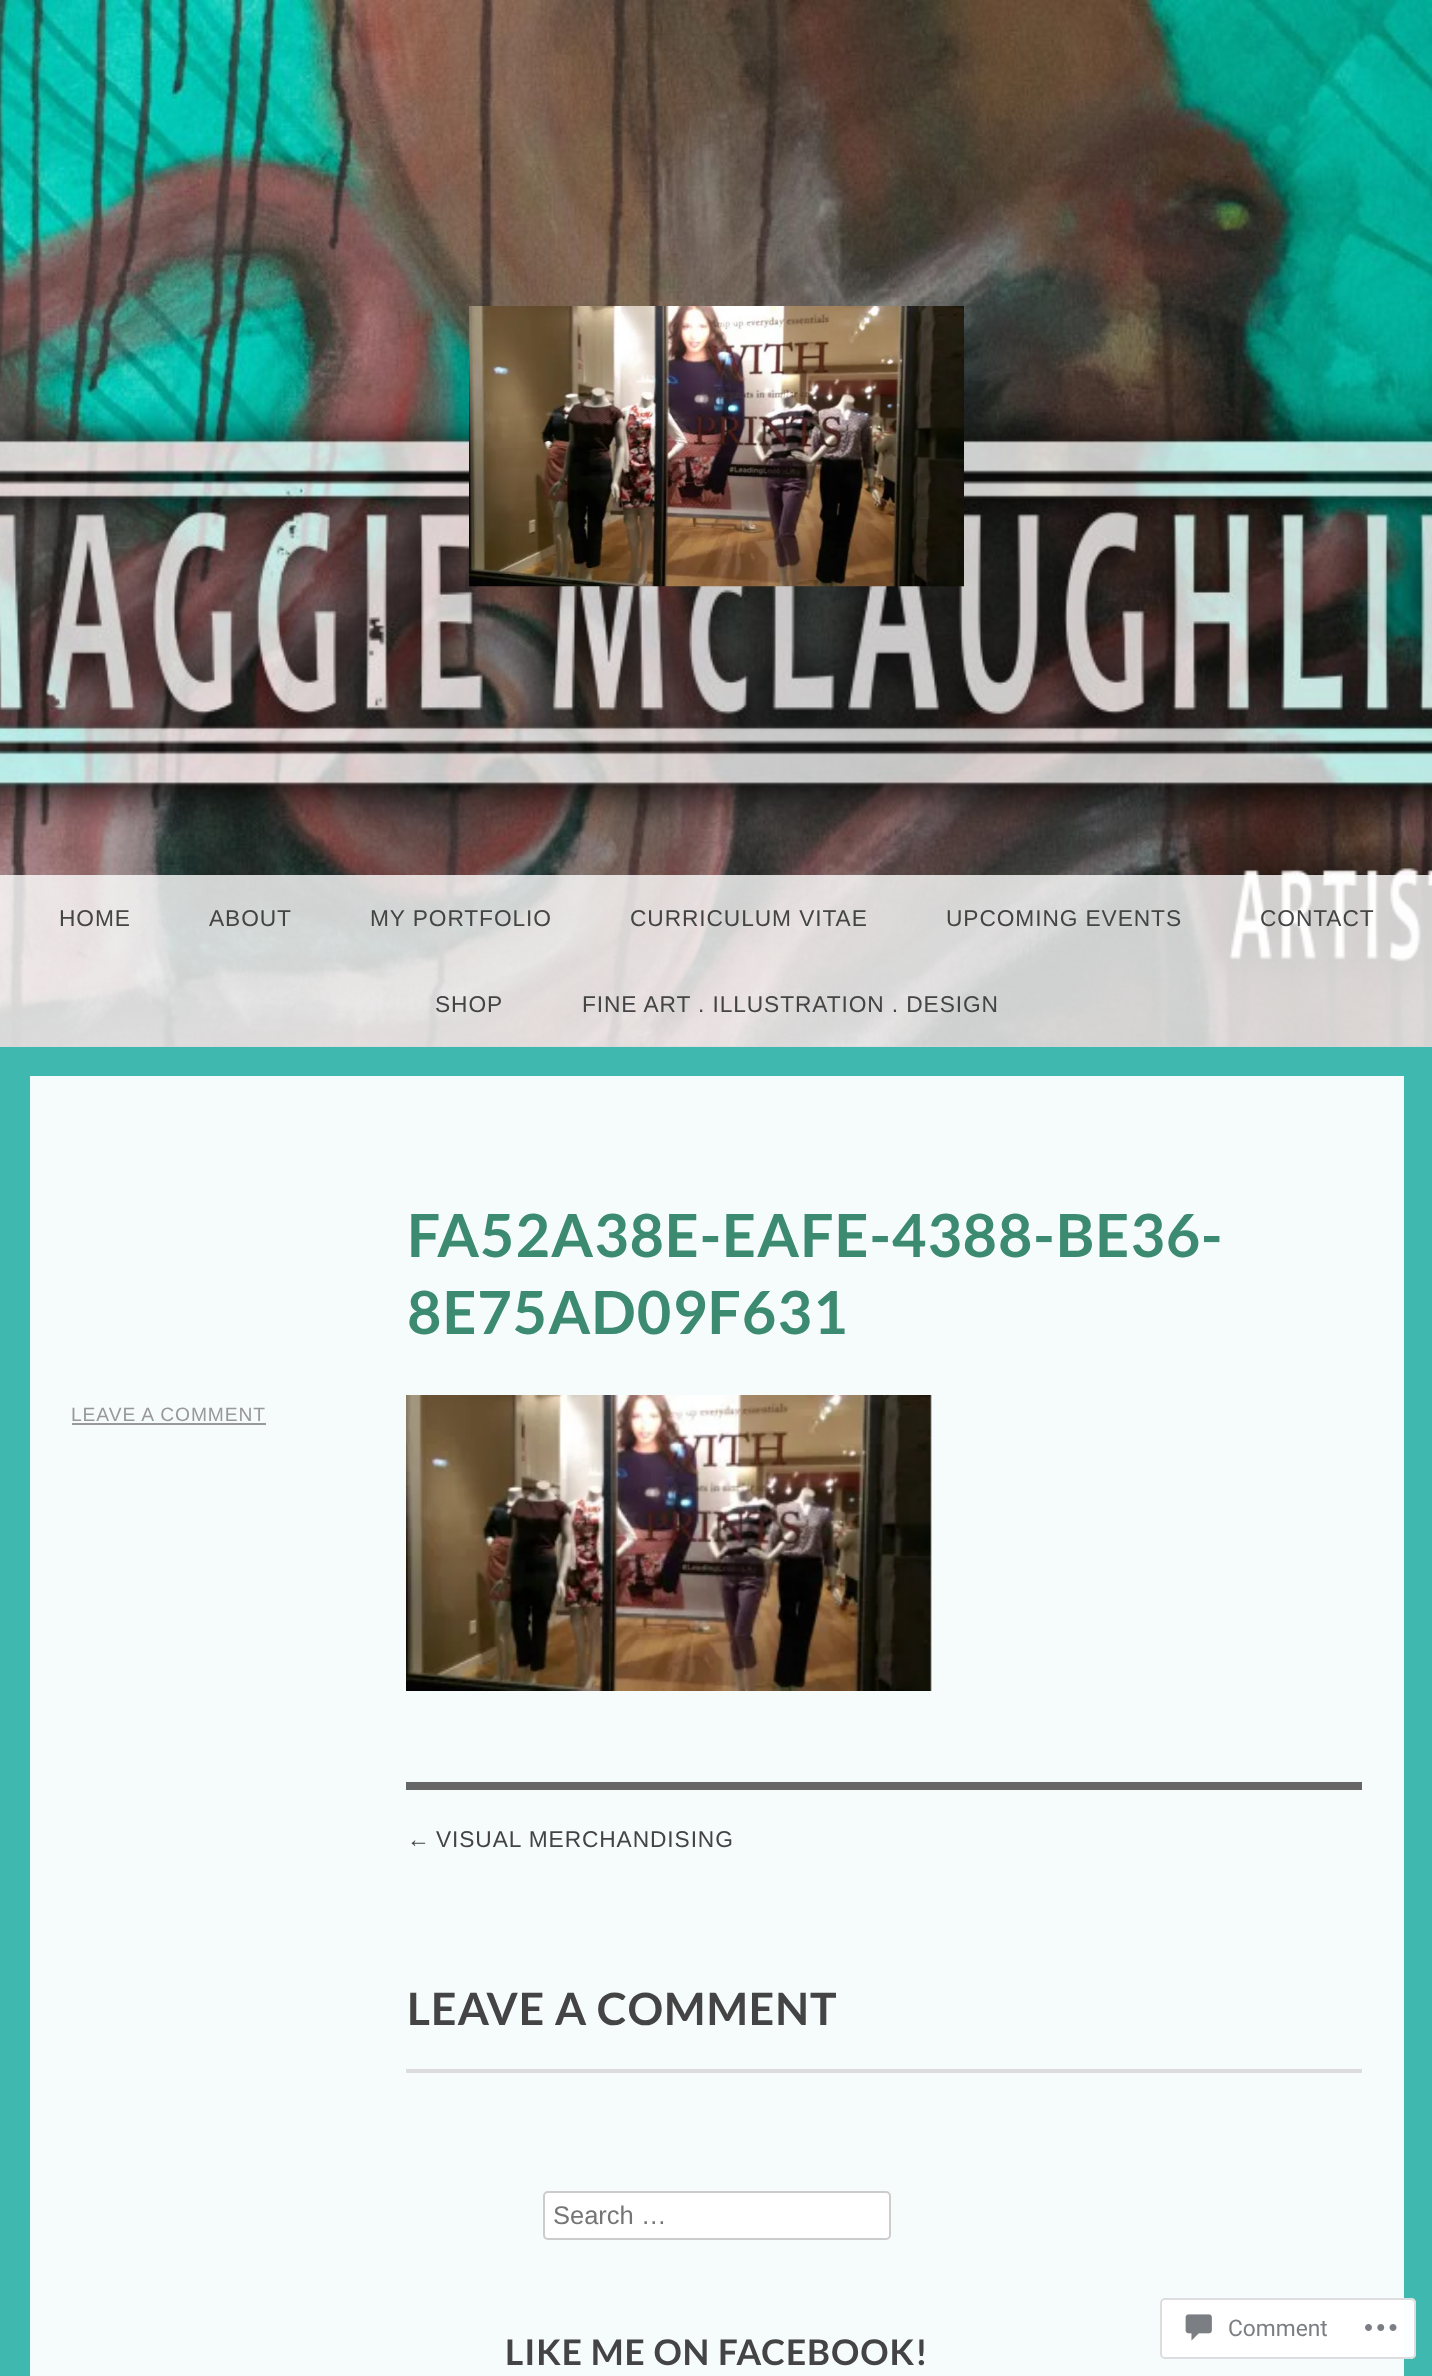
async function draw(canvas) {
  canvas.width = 1432;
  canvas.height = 2376;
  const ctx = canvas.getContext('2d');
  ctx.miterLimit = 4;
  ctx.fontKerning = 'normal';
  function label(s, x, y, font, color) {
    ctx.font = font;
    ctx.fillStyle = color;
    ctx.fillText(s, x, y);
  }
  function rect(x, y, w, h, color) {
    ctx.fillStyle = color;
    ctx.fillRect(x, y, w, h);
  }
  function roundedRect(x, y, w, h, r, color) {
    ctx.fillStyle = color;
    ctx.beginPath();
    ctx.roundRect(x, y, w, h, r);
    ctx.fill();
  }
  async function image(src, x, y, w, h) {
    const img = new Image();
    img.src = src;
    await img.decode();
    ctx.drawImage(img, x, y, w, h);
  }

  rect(0, 0, 1432, 2376, '#3fb8af');
  rect(0, 1046, 1432, 1, '#333');
  await image('assets/img1.png', 0, 0, 1432, 1047);
  await image('assets/img2.png', 469, 306, 495, 281);
  rect(0, 875, 1432, 172, '#ffffffcc');
  ctx.letterSpacing = '0.9px';
  label('HOME', 59, 926, '22.75px Liberation Sans', '#444');
  label('ABOUT', 209, 926, '22.75px Liberation Sans', '#444');
  label('MY PORTFOLIO', 370, 926, '22.75px Liberation Sans', '#444');
  label('CURRICULUM VITAE', 630, 926, '22.75px Liberation Sans', '#444');
  label('UPCOMING EVENTS', 946, 926, '22.75px Liberation Sans', '#444');
  label('CONTACT', 1260, 926, '22.75px Liberation Sans', '#444');
  label('SHOP', 435, 1012, '22.75px Liberation Sans', '#444');
  label('FINE ART . ILLUSTRATION . DESIGN', 582, 1012, '22.75px Liberation Sans', '#444');
  rect(30, 1076, 1374, 1300, '#f5fcfb');
  label('FA52A38E-EAFE-4388-BE36-', 407, 1257, 'bold 59.5px Lato', '#3c8a70');
  label('8E75AD09F631', 407, 1334, 'bold 59.5px Lato', '#3c8a70');
  label('LEAVE A COMMENT', 71, 1421, '19.25px Liberation Sans', '#999');
  rect(72, 1423, 194, 2, '#999');
  await image('assets/img3.png', 406, 1395, 526, 296);
  rect(406, 1782, 956, 8, '#666');
  label('←', 407, 1847, '22.75px Liberation Sans', '#444');
  label('VISUAL MERCHANDISING', 436, 1847, '22.75px Liberation Sans', '#444');
  label('LEAVE A COMMENT', 407, 2025, 'bold 44.6px Lato', '#444');
  rect(406, 2069, 956, 4, '#dcdcde');
  ctx.fillStyle = '#fff';
  ctx.beginPath();
  ctx.roundRect(544, 2192, 346, 47, 4);
  ctx.fill();
  ctx.strokeStyle = '#ccc';
  ctx.lineWidth = 2;
  ctx.stroke();
  ctx.letterSpacing = '0px';
  label('Search …', 553, 2224, '25.5px Liberation Sans', '#757575');
  ctx.letterSpacing = '0.9px';
  label('LIKE ME ON FACEBOOK!', 505, 2365, 'bold 35.4px Lato', '#444');
  roundedRect(1160, 2298, 256, 61, 5, '#fffffffa');
  ctx.beginPath();
  ctx.roundRect(1161, 2299, 254, 59, 4);
  ctx.strokeStyle = '#dcdcdefa';
  ctx.stroke();
  await image('assets/img4.png', 1185, 2314, 27, 27);
  ctx.letterSpacing = '0px';
  label('Comment', 1228, 2336, '22.75px Roboto', '#7b7f84');
  await image('assets/img5.png', 1365, 2324, 32, 7);
}

draw(document.querySelector('canvas'));
